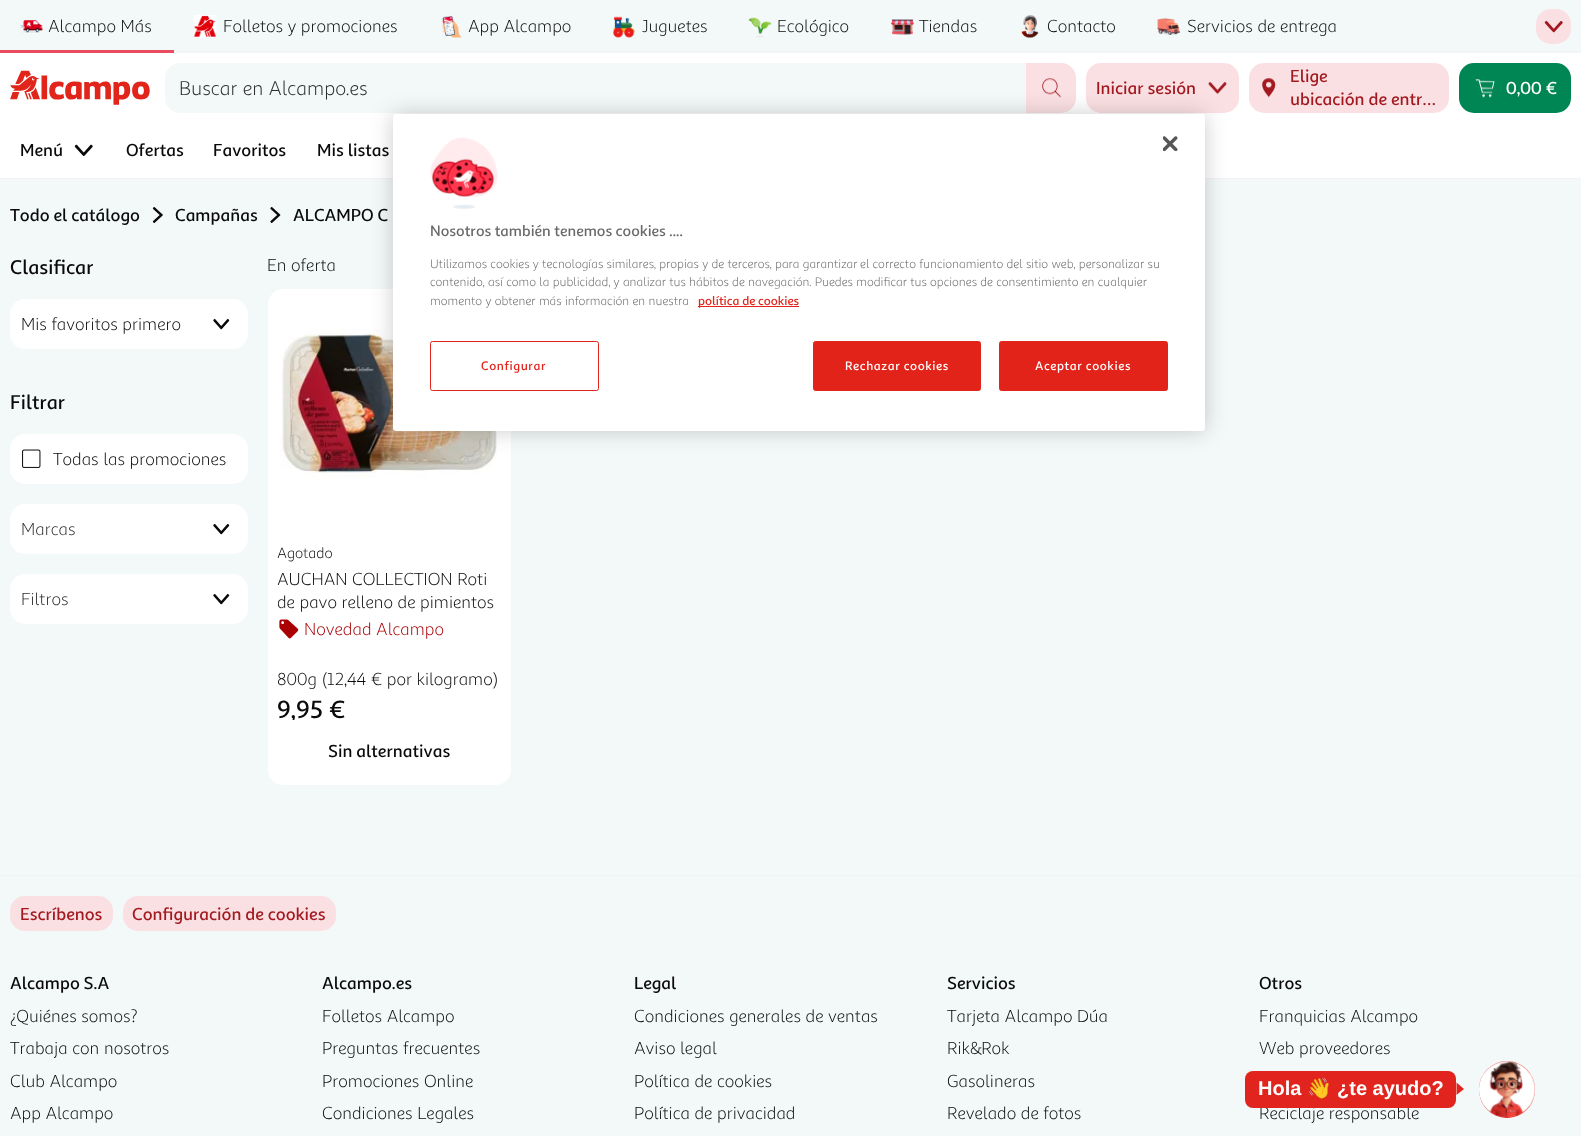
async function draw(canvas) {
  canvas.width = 1581;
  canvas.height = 1136;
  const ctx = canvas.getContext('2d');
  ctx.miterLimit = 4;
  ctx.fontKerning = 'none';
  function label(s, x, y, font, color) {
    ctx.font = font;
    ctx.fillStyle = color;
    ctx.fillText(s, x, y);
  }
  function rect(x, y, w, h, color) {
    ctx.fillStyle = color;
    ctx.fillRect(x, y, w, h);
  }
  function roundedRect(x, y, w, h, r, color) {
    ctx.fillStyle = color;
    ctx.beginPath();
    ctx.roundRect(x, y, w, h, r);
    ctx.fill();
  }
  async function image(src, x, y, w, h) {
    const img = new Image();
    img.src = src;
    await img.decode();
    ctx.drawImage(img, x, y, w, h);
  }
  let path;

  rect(0, 0, 1581, 1136, '#f3f8f8');
  await image('assets/img1.png', 20, 20, 23, 13);
  label('Alcampo Más', 48, 32, '17.5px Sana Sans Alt', '#0a0a0a');
  rect(0, 50, 174, 3, '#e94c5e');
  await image('assets/img2.png', 193, 15, 24, 23);
  label('Folletos y promociones', 223, 32, '17.5px Sana Sans Alt', '#0a0a0a');
  await image('assets/img3.png', 441, 15, 21, 23);
  label('App Alcampo', 468, 32, '17.5px Sana Sans Alt', '#0a0a0a');
  await image('assets/img4.png', 613, 16, 22, 22);
  label('Juguetes', 642, 32, '17.5px Sana Sans Alt', '#0a0a0a');
  await image('assets/img5.png', 748, 17, 24, 20);
  label('Ecológico', 777, 32, '17.5px Sana Sans Alt', '#0a0a0a');
  await image('assets/img6.png', 891, 19, 23, 18);
  label('Tiendas', 919, 32, '17.5px Sana Sans Alt', '#0a0a0a');
  await image('assets/img7.png', 1021, 15, 18, 23);
  label('Contacto', 1047, 32, '17.5px Sana Sans Alt', '#0a0a0a');
  await image('assets/img8.png', 1157, 18, 23, 17);
  label('Servicios de entrega', 1187, 32, '17.5px Sana Sans Alt', '#0a0a0a');
  roundedRect(1536, 9, 35, 35, 15, '#fbe0e3');
  await image('assets/img9.png', 1544, 21, 19, 12);
  rect(174, 51, 1407, 1, '#f2f3f4');
  rect(0, 178, 1581, 1, '#f2f3f4');
  rect(0, 53, 1581, 125, '#fff');
  await image('assets/img10.png', 10, 70, 140, 35);
  ctx.fillStyle = '#f3f8f8';
  ctx.beginPath();
  ctx.roundRect(165, 63, 861, 50, [15, 0, 0, 15]);
  ctx.fill();
  label('Buscar en Alcampo.es', 179, 95, '20px Sana Sans Alt', '#2e2e2e');
  ctx.fillStyle = '#fbe0e3';
  ctx.beginPath();
  ctx.roundRect(1026, 63, 50, 50, [0, 15, 15, 0]);
  ctx.fill();
  await image('assets/img11.png', 1042, 78, 19, 20);
  roundedRect(1086, 63, 153, 50, 15, '#fbe0e3');
  label('Iniciar sesión', 1096, 94, '500 17.5px Sana Sans Alt', '#a21a20');
  await image('assets/img12.png', 1208, 82, 19, 13);
  roundedRect(1249, 63, 200, 50, 15, '#fbe0e3');
  await image('assets/img13.png', 1262, 78, 14, 20);
  label('Elige', 1290, 82, '500 17.5px Sana Sans Alt', '#a21a20');
  label('ubicación de entr…', 1290, 105, '500 17.5px Sana Sans Alt', '#a21a20');
  roundedRect(1459, 63, 112, 50, 15, '#008554');
  await image('assets/img14.png', 1475, 79, 20, 19);
  label('0,00 €', 1506, 94, '500 17.5px Sana Sans Alt', '#fff');
  label('Menú', 20, 156, '500 17.5px Sana Sans Alt', '#0a0a0a');
  await image('assets/img15.png', 74, 144, 19, 12);
  label('Ofertas', 126, 156, '500 17.5px Sana Sans Alt', '#0a0a0a');
  label('Favoritos', 213, 156, '500 17.5px Sana Sans Alt', '#0a0a0a');
  label('Mis listas', 317, 156, '500 17.5px Sana Sans Alt', '#0a0a0a');
  label('Todo el catálogo', 10, 221, '500 17.5px Sana Sans Alt', '#0a0a0a');
  await image('assets/img16.png', 152, 207, 11, 16);
  label('Campañas', 175, 221, '500 17.5px Sana Sans Alt', '#0a0a0a');
  await image('assets/img17.png', 270, 207, 11, 16);
  label('ALCAMPO C', 293, 221, '500 17.5px Sana Sans Alt', '#0a0a0a');
  label('Clasificar', 10, 274, '500 20px Sana Sans Alt', '#0a0a0a');
  roundedRect(10, 299, 238, 50, 15, '#fff');
  label('Mis favoritos primero', 21, 330, '17.5px Sana Sans Alt', '#0a0a0a');
  await image('assets/img18.png', 213, 319, 17, 11);
  label('Filtrar', 10, 409, '500 20px Sana Sans Alt', '#0a0a0a');
  roundedRect(10, 434, 238, 50, 15, '#fff');
  await image('assets/img19.png', 22, 449, 19, 19);
  label('Todas las promociones', 53, 465, '17.5px Sana Sans Alt', '#0a0a0a');
  roundedRect(10, 504, 238, 50, 15, '#fff');
  label('Marcas', 21, 535, '17.5px Sana Sans Alt', '#2e2e2e');
  await image('assets/img18.png', 213, 524, 17, 11);
  roundedRect(10, 574, 238, 50, 15, '#fff');
  label('Filtros', 21, 605, '17.5px Sana Sans Alt', '#2e2e2e');
  await image('assets/img18.png', 213, 594, 17, 11);
  label('En oferta', 267, 271, '17.5px Sana Sans Alt', '#0a0a0a');
  roundedRect(268, 289, 243, 496, 15, '#fff');
  await image('assets/img20.png', 280, 329, 217, 149);
  label('Agotado', 277, 558, '15px Sana Sans Alt', '#0a0a0a');
  label('AUCHAN COLLECTION Roti', 277, 585, '17.5px Sana Sans Alt', '#0a0a0a');
  ctx.save();
  ctx.beginPath();
  ctx.rect(278, 568, 223, 45);
  ctx.clip();
  label('de pavo relleno de pimientos', 277, 608, '17.5px Sana Sans Alt', '#0a0a0a');
  ctx.restore();
  await image('assets/img21.png', 279, 619, 20, 20);
  label('Novedad Alcampo', 304, 635, '17.5px Sana Sans Alt', '#a90004');
  label('800g', 277, 685, '17.5px Sana Sans Alt', '#0a0a0a');
  label('(12,44 € por kilogramo)', 322, 685, '17.5px Sana Sans Alt', '#0a0a0a');
  ctx.save();
  ctx.beginPath();
  ctx.rect(278, 695, 223, 25);
  ctx.clip();
  label('9,95 €', 277, 718, '500 25px Sana Sans Alt', '#0a0a0a');
  ctx.restore();
  label('Sin alternativas', 328, 757, '500 17.5px Sana Sans Alt', '#0a0a0a');
  rect(0, 875, 1581, 1, '#f2f3f4');
  roundedRect(10, 896, 103, 35, 15, '#fbe0e3');
  label('Escríbenos', 20, 920, '500 17.5px Sana Sans Alt', '#a21a20');
  roundedRect(123, 896, 213, 35, 15, '#fbe0e3');
  label('Configuración de cookies', 132, 920, '500 17.5px Sana Sans Alt', '#a21a20');
  label('Alcampo S.A', 10, 989, '500 17.5px Sana Sans Alt', '#0a0a0a');
  label('¿Quiénes somos?', 10, 1022, '17.5px Sana Sans Alt', '#0a0a0a');
  label('Trabaja con nosotros', 10, 1054, '17.5px Sana Sans Alt', '#0a0a0a');
  label('Club Alcampo', 10, 1087, '17.5px Sana Sans Alt', '#0a0a0a');
  label('App Alcampo', 10, 1119, '17.5px Sana Sans Alt', '#0a0a0a');
  label('Alcampo.es', 322, 989, '500 17.5px Sana Sans Alt', '#0a0a0a');
  label('Folletos Alcampo', 322, 1022, '17.5px Sana Sans Alt', '#0a0a0a');
  label('Preguntas frecuentes', 322, 1054, '17.5px Sana Sans Alt', '#0a0a0a');
  label('Promociones Online', 322, 1087, '17.5px Sana Sans Alt', '#0a0a0a');
  label('Condiciones Legales', 322, 1119, '17.5px Sana Sans Alt', '#0a0a0a');
  label('Legal', 634, 989, '500 17.5px Sana Sans Alt', '#0a0a0a');
  label('Condiciones generales de ventas', 634, 1022, '17.5px Sana Sans Alt', '#0a0a0a');
  label('Aviso legal', 634, 1054, '17.5px Sana Sans Alt', '#0a0a0a');
  label('Política de cookies', 634, 1087, '17.5px Sana Sans Alt', '#0a0a0a');
  label('Política de privacidad', 634, 1119, '17.5px Sana Sans Alt', '#0a0a0a');
  label('Servicios', 947, 989, '500 17.5px Sana Sans Alt', '#0a0a0a');
  label('Tarjeta Alcampo Dúa', 947, 1022, '17.5px Sana Sans Alt', '#0a0a0a');
  label('Rik&Rok', 947, 1054, '17.5px Sana Sans Alt', '#0a0a0a');
  label('Gasolineras', 947, 1087, '17.5px Sana Sans Alt', '#0a0a0a');
  label('Revelado de fotos', 947, 1119, '17.5px Sana Sans Alt', '#0a0a0a');
  label('Otros', 1259, 989, '500 17.5px Sana Sans Alt', '#0a0a0a');
  label('Franquicias Alcampo', 1259, 1022, '17.5px Sana Sans Alt', '#0a0a0a');
  label('Web proveedores', 1259, 1054, '17.5px Sana Sans Alt', '#0a0a0a');
  label('Reciclaje responsable', 1259, 1119, '17.5px Sana Sans Alt', '#0a0a0a');
  ctx.fillStyle = '#00000033';
  ctx.filter = 'blur(11px)';
  ctx.beginPath();
  ctx.roundRect(393, 114, 812, 317, 3);
  ctx.fill();
  ctx.filter = 'none';
  roundedRect(393, 114, 812, 317, 3, '#fff');
  await image('assets/img22.png', 1163, 136, 15, 15);
  await image('assets/img23.png', 430, 137, 68, 72);
  label('Nosotros también tenemos cookies ....', 430, 236, '500 15.25px Sana Sans Alt', '#696969');
  label('Utilizamos cookies y tecnologías similares, propias y de terceros, para garantizar', 430, 268, '12.45px Sana Sans Alt', '#696969');
  label('el correcto funcionamiento del sitio web, personalizar su', 860, 268, '12.45px Sana Sans Alt', '#696969');
  label('contenido, así como la publicidad, y analizar tus hábitos de navegación. Puedes modificar tus opciones de consentimiento en cualquier', 430, 286, '12.45px Sana Sans Alt', '#696969');
  label('momento y obtener más información en nuestra', 430, 305, '12.45px Sana Sans Alt', '#696969');
  rect(698, 306, 101, 1, '#e2231a');
  label('política de cookies', 698, 305, '500 12.45px Sana Sans Alt', '#e2231a');
  ctx.beginPath();
  ctx.roundRect(430.5, 341.5, 168, 49, 2);
  ctx.strokeStyle = '#e2231a';
  ctx.stroke();
  ctx.letterSpacing = '0.6px';
  label('Configurar', 481, 370, '500 12.45px Sana Sans Alt', '#e2231a');
  ctx.beginPath();
  ctx.roundRect(813.5, 341.5, 167, 49, 2);
  ctx.fill();
  ctx.stroke();
  label('Rechazar cookies', 845, 370, '500 12.45px Sana Sans Alt', '#fff');
  ctx.fillStyle = '#e2231a';
  ctx.beginPath();
  ctx.roundRect(999.5, 341.5, 168, 49, 2);
  ctx.fill();
  ctx.stroke();
  label('Aceptar cookies', 1035, 370, '500 12.45px Sana Sans Alt', '#fff');
  roundedRect(1245, 1071, 211, 37, 8, '#e1241d');
  ctx.letterSpacing = '0px';
  label('Hola', 1258, 1095, 'bold 20px Liberation Sans', '#fff');
  label('👋', 1307, 1095, 'bold 20px Noto Color Emoji', '#fff');
  label('¿te ayudo?', 1337, 1095, 'bold 20px Liberation Sans', '#fff');
  ctx.fillStyle = '#e1241d';
  path = new Path2D('M1456.5 1095V1082.5L1464 1089Z');
  ctx.fill(path);
  roundedRect(1479, 1061, 56, 57, 28, '#e1241d');
  await image('assets/img24.png', 1479, 1061, 56, 57);
}

draw(document.querySelector('canvas'));
